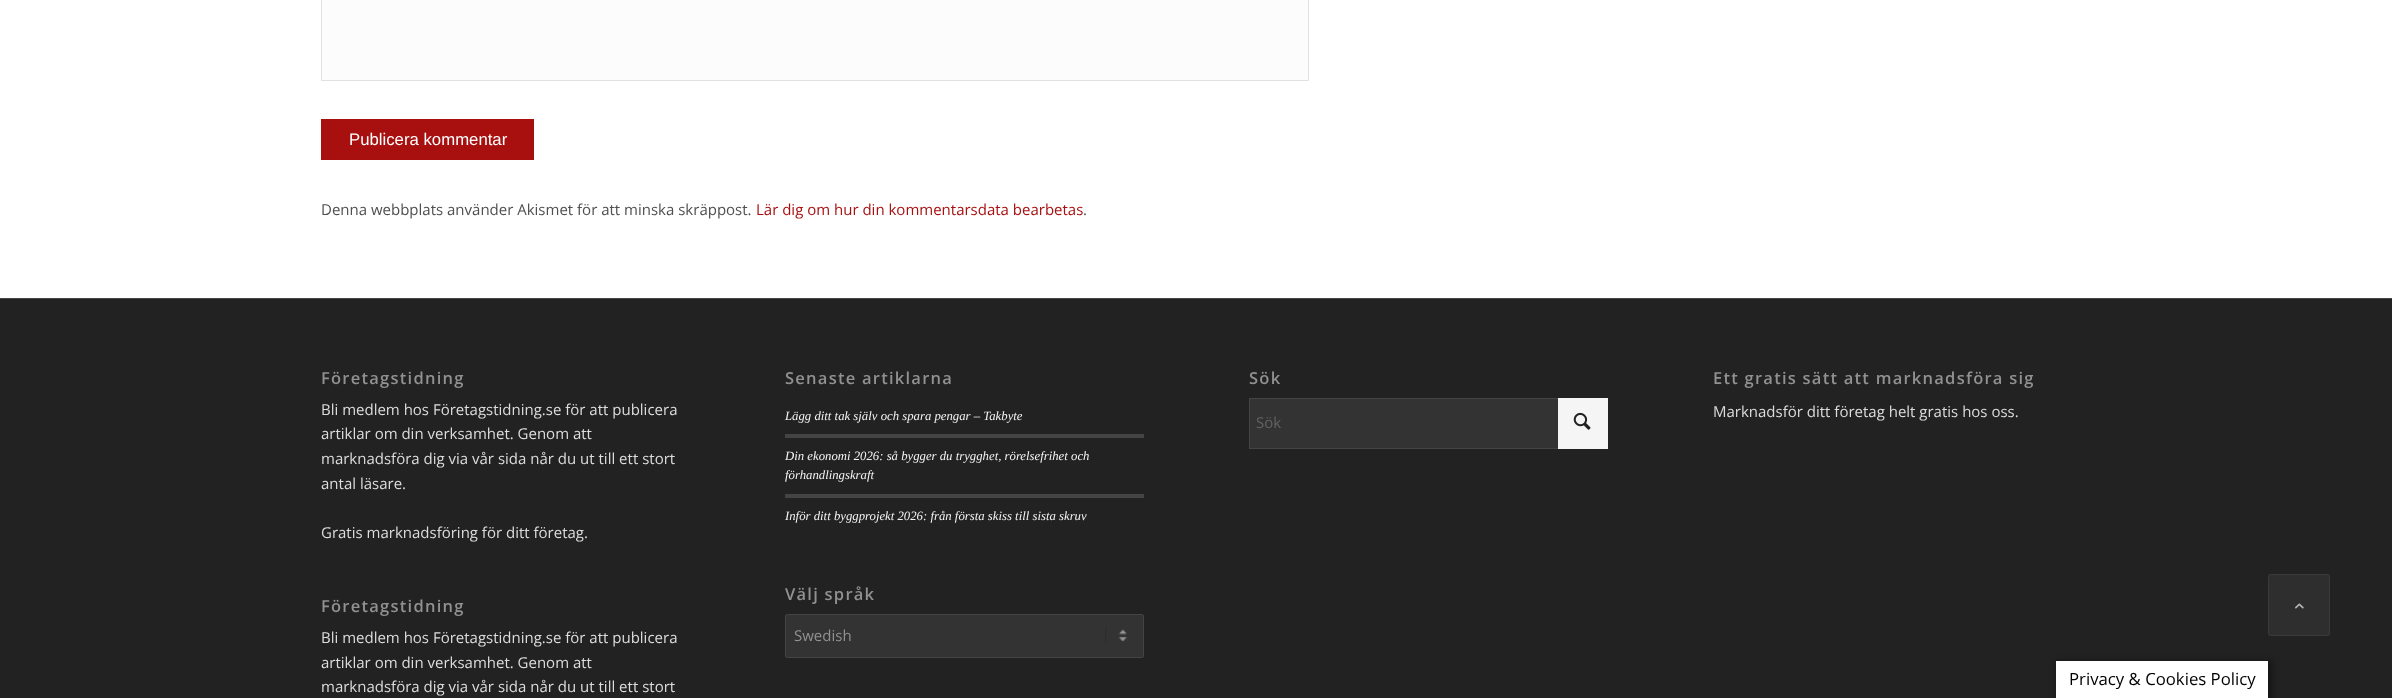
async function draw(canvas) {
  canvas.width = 2392;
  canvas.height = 698;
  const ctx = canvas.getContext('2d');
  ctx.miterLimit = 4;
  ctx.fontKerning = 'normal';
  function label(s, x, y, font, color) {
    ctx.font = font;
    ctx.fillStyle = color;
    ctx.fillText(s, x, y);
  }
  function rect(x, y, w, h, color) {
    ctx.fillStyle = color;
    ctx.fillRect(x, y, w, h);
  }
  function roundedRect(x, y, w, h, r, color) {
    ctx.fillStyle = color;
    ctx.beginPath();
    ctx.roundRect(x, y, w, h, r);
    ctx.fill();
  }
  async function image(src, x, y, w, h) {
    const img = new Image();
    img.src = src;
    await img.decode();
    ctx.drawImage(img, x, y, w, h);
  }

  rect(0, 0, 2392, 698, '#fff');
  ctx.fillStyle = '#fcfcfc';
  ctx.beginPath();
  ctx.rect(321.5, -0.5, 987, 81);
  ctx.fill();
  ctx.strokeStyle = '#e1e1e1';
  ctx.stroke();
  rect(321, 119, 213, 41, '#a81010');
  label('Publicera kommentar', 349, 145, '16.75px Liberation Sans', '#fff');
  label('Denna webbplats använder Akismet för att minska skräppost.', 321, 215, '15px Open Sans', '#4f4f4f');
  label('Lär dig om hur din kommentarsdata bearbetas', 756, 215, '15px Open Sans', '#a81010');
  label('.', 1083, 215, '15px Open Sans', '#4f4f4f');
  rect(0, 299, 2392, 399, '#222');
  rect(0, 298, 2392, 1, '#444');
  ctx.letterSpacing = '1.25px';
  label('Företagstidning', 321, 384, '600 16.5px Open Sans', '#919191');
  ctx.letterSpacing = '0px';
  label('Bli medlem hos Företagstidning.se för att publicera', 321, 415, '15px Open Sans', '#ddd');
  label('artiklar om din verksamhet. Genom att', 321, 439, '15px Open Sans', '#ddd');
  label('marknadsföra dig via vår sida når du ut till ett stort', 321, 464, '15px Open Sans', '#ddd');
  label('antal läsare.', 321, 489, '15px Open Sans', '#ddd');
  label('Gratis marknadsföring för ditt företag.', 321, 538, '15px Open Sans', '#ddd');
  ctx.letterSpacing = '1.25px';
  label('Företagstidning', 321, 612, '600 16.5px Open Sans', '#919191');
  ctx.letterSpacing = '0px';
  label('Bli medlem hos Företagstidning.se för att publicera', 321, 643, '15px Open Sans', '#ddd');
  label('artiklar om din verksamhet. Genom att', 321, 668, '15px Open Sans', '#ddd');
  label('marknadsföra dig via vår sida når du ut till ett stort', 321, 692, '15px Open Sans', '#ddd');
  ctx.letterSpacing = '1.25px';
  label('Senaste artiklarna', 785, 384, '600 16.5px Open Sans', '#919191');
  ctx.letterSpacing = '0px';
  label('Lägg ditt tak själv och spara pengar – Takbyte', 785, 420, 'italic 12.75px Liberation Serif', '#f5f5f5');
  rect(785, 434, 359, 4, '#444');
  label('Din ekonomi 2026: så bygger du trygghet, rörelsefrihet och', 785, 460, 'italic 12.75px Liberation Serif', '#f5f5f5');
  label('förhandlingskraft', 785, 479, 'italic 12.75px Liberation Serif', '#f5f5f5');
  rect(785, 494, 359, 4, '#444');
  label('Inför ditt byggprojekt 2026: från första skiss till sista skruv', 785, 520, 'italic 12.75px Liberation Serif', '#f5f5f5');
  ctx.letterSpacing = '1.25px';
  label('Välj språk', 785, 600, '600 16.5px Open Sans', '#919191');
  roundedRect(785, 614, 359, 44, 2.5, '#333');
  await image('assets/img1.png', 1105, 627, 22, 16);
  ctx.beginPath();
  ctx.roundRect(785.5, 614.5, 358, 43, 2);
  ctx.strokeStyle = '#444';
  ctx.stroke();
  ctx.letterSpacing = '0px';
  label('Swedish', 794, 641, '15px Open Sans', '#919191');
  ctx.letterSpacing = '1.25px';
  label('Sök', 1249, 384, '600 16.5px Open Sans', '#919191');
  rect(1250, 399, 308, 49, '#333');
  ctx.strokeRect(1249.5, 398.5, 358, 50);
  ctx.letterSpacing = '0px';
  label('Sök', 1256, 428, '15px Open Sans', '#626262');
  rect(1558, 398, 50, 51, '#f5f5f5');
  await image('assets/img2.png', 1573, 412, 18, 18);
  ctx.letterSpacing = '1.25px';
  label('Ett gratis sätt att marknadsföra sig', 1713, 384, '600 16.5px Open Sans', '#919191');
  ctx.letterSpacing = '0px';
  label('Marknadsför ditt företag helt gratis hos oss.', 1713, 417, '15px Open Sans', '#ddd');
  ctx.fillStyle = '#2e2e2e';
  ctx.beginPath();
  ctx.roundRect(2268.5, 574.5, 61, 61, 2);
  ctx.fill();
  ctx.strokeStyle = '#3a3a3a';
  ctx.stroke();
  await image('assets/img3.png', 2295, 603, 9, 6);
  ctx.fillStyle = '#161616';
  ctx.filter = 'blur(3px)';
  ctx.beginPath();
  ctx.rect(2056, 661, 217, 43);
  ctx.fill();
  ctx.filter = 'none';
  rect(2056, 661, 212, 37, '#fff');
  label('Privacy & Cookies Policy', 2069, 685, '16.75px Open Sans', '#000');
}

draw(document.querySelector('canvas'));
